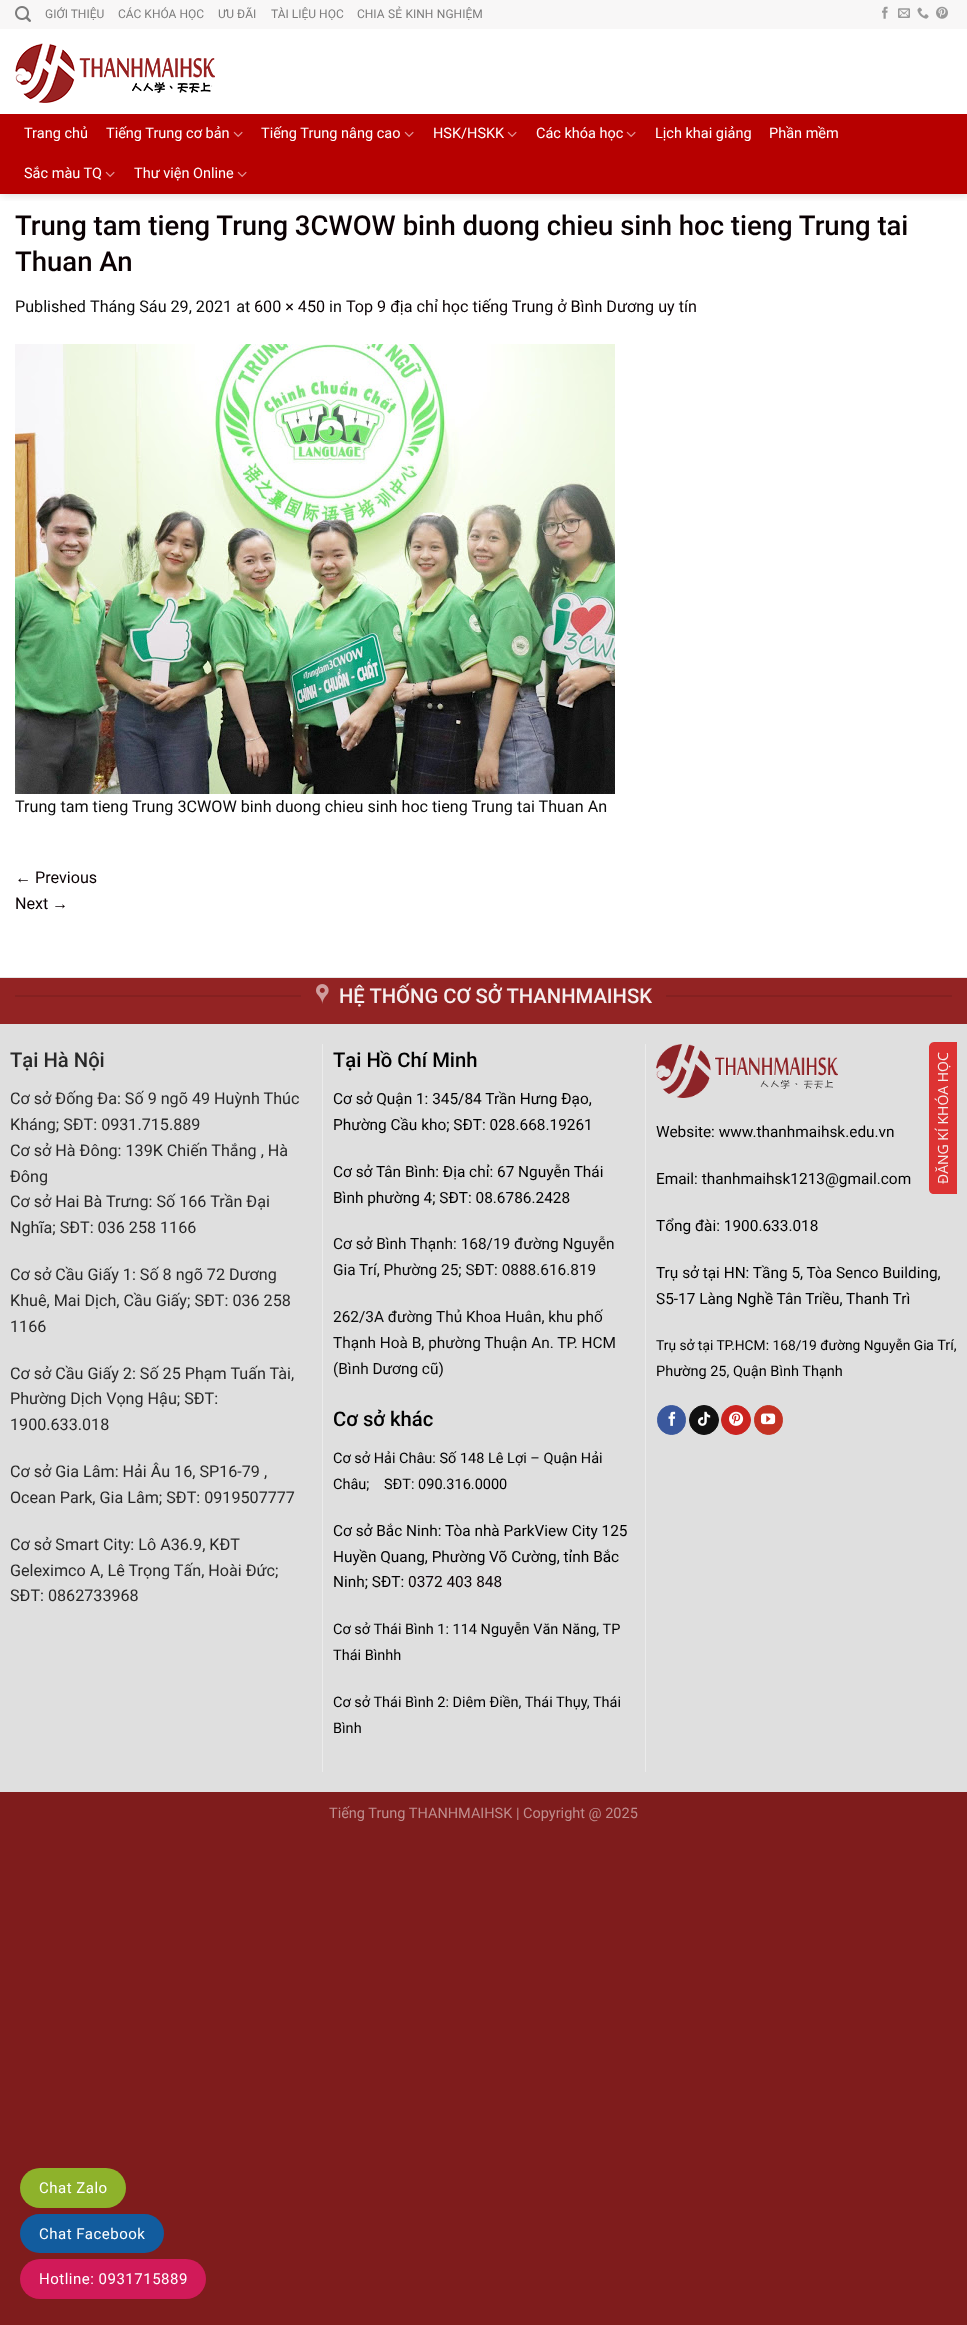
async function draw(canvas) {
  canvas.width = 967;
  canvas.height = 2325;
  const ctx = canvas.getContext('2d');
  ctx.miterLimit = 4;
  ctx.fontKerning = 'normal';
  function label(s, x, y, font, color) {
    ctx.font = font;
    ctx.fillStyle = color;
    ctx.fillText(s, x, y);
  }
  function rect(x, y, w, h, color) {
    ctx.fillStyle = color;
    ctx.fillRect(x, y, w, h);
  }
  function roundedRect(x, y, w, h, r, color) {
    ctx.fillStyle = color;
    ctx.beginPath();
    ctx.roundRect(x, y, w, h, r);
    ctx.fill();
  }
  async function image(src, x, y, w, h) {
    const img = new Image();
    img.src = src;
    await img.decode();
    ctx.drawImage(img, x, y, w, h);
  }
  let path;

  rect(0, 0, 967, 2325, '#7f1c1c');
  rect(0, 29, 967, 948, '#fff');
  ctx.save();
  ctx.beginPath();
  ctx.rect(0, 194, 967, 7);
  ctx.clip();
  ctx.fillStyle = '#00000026';
  ctx.filter = 'blur(5px)';
  ctx.beginPath();
  ctx.rect(1, 1, 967, 194);
  ctx.fill();
  ctx.filter = 'none';
  ctx.restore();
  rect(0, 0, 967, 29, '#f8f7f7');
  await image('assets/img1.png', 15, 6, 16, 16);
  label('GIỚI THIỆU', 45, 18, '12px Roboto', '#7c7c7c');
  label('CÁC KHÓA HỌC', 118, 18, '12px Roboto', '#7c7c7c');
  label('ƯU ĐÃI', 218, 18, '12px Roboto', '#7c7c7c');
  label('TÀI LIỆU HỌC', 271, 18, '12px Roboto', '#7c7c7c');
  ctx.wordSpacing = '0.5px';
  label('CHIA SẺ KINH NGHIỆM', 357, 18, '12px Roboto', '#7c7c7c');
  await image('assets/img2.png', 882, 6, 6, 13);
  await image('assets/img3.png', 898, 8, 12, 10);
  await image('assets/img4.png', 917, 7, 12, 12);
  await image('assets/img5.png', 936, 6, 12, 13);
  await image('assets/img6.png', 15, 43, 200, 60);
  rect(0, 114, 967, 80, '#b70000');
  ctx.wordSpacing = '0px';
  label('Trang chủ', 24, 138, '14.5px Roboto', '#fff');
  label('Tiếng Trung cơ bản', 106, 138, '14.5px Roboto', '#fff');
  await image('assets/img7.png', 233, 131, 10, 6);
  label('Tiếng Trung nâng cao', 261, 138, '14.5px Roboto', '#fff');
  await image('assets/img7.png', 404, 131, 10, 6);
  label('HSK/HSKK', 433, 138, '14.5px Roboto', '#fff');
  await image('assets/img7.png', 507, 131, 10, 6);
  label('Các khóa học', 536, 138, '14.5px Roboto', '#fff');
  await image('assets/img7.png', 626, 131, 10, 6);
  label('Lịch khai giảng', 655, 138, '14.5px Roboto', '#fff');
  label('Phần mềm', 769, 138, '14.5px Roboto', '#fff');
  label('Sắc màu TQ', 24, 178, '14.5px Roboto', '#fff');
  await image('assets/img7.png', 105, 171, 10, 6);
  label('Thư viện Online', 134, 178, '14.5px Roboto', '#fff');
  await image('assets/img7.png', 237, 171, 10, 6);
  label('Trung tam tieng Trung 3CWOW binh duong chieu sinh hoc tieng Trung tai', 15, 235, '500 27.5px Roboto', '#0a0103');
  label('Thuan An', 15, 271, '500 27.5px Roboto', '#0a0103');
  label('Published', 15, 312, '16.15px Roboto', '#0a0a0a');
  label('Tháng Sáu 29, 2021 at', 90, 312, '16.15px Roboto', '#0a0a0a');
  label('600 × 450', 254, 312, '16.15px Roboto', '#0a0103');
  label('in', 329, 312, '16.15px Roboto', '#0a0a0a');
  label('Top 9 địa chỉ học tiếng Trung ở Bình Dương uy tín', 346, 312, '16.15px Roboto', '#0a0103');
  await image('assets/img8.png', 15, 344, 600, 450);
  label('Trung tam tieng Trung 3CWOW binh duong chieu sinh hoc tieng Trung tai Thuan An', 15, 812, '16.15px Roboto', '#0a0a0a');
  label('←', 15, 883, '16.15px Liberation Sans', '#0a0103');
  label('Previous', 35, 883, '16.15px Roboto', '#0a0103');
  label('Next', 15, 909, '16.15px Roboto', '#0a0103');
  label('→', 52, 909, '16.15px Liberation Sans', '#0a0103');
  rect(0, 977, 967, 1, '#e6e6e6');
  rect(0, 978, 967, 46, '#932323');
  rect(15, 995, 286, 2, '#852020');
  await image('assets/img9.png', 316, 984, 13, 20);
  label('HỆ THỐNG CƠ SỞ THANHMAIHSK', 339, 1003, '500 20.25px Roboto', '#f6efef');
  rect(666, 995, 286, 2, '#852020');
  rect(0, 1024, 967, 768, '#dfdfdf');
  label('Tại Hà Nội', 10, 1067, '500 20.25px Roboto', '#282828');
  label('Cơ sở Đống Đa: Số 9 ngõ 49 Huỳnh Thúc', 10, 1104, '16.15px Roboto', '#282828');
  label('Kháng; SĐT: 0931.715.889', 10, 1130, '16.15px Roboto', '#282828');
  label('Cơ sở Hà Đông: 139K Chiến Thắng , Hà', 10, 1156, '16.15px Roboto', '#282828');
  label('Đông', 10, 1182, '16.15px Roboto', '#282828');
  label('Cơ sở Hai Bà Trưng: Số 166 Trần Đại', 10, 1207, '16.15px Roboto', '#282828');
  label('Nghĩa; SĐT: 036 258 1166', 10, 1233, '16.15px Roboto', '#282828');
  label('Cơ sở Cầu Giấy 1: Số 8 ngõ 72 Dương', 10, 1280, '16.15px Roboto', '#282828');
  label('Khuê, Mai Dịch, Cầu Giấy; SĐT: 036 258', 10, 1306, '16.15px Roboto', '#282828');
  label('1166', 10, 1332, '16.15px Roboto', '#282828');
  label('Cơ sở Cầu Giấy 2: Số 25 Phạm Tuấn Tài,', 10, 1379, '16.15px Roboto', '#282828');
  label('Phường Dịch Vọng Hậu; SĐT:', 10, 1404, '16.15px Roboto', '#282828');
  label('1900.633.018', 10, 1430, '16.15px Roboto', '#282828');
  label('Cơ sở Gia Lâm: Hải Âu 16, SP16-79 ,', 10, 1477, '16.15px Roboto', '#282828');
  label('Ocean Park, Gia Lâm; SĐT: 0919507777', 10, 1503, '16.15px Roboto', '#282828');
  label('Cơ sở Smart City: Lô A36.9, KĐT', 10, 1550, '16.15px Roboto', '#282828');
  label('Geleximco A, Lê Trọng Tấn, Hoài Đức;', 10, 1576, '16.15px Roboto', '#282828');
  label('SĐT: 0862733968', 10, 1601, '16.15px Roboto', '#282828');
  rect(322, 1044, 1, 728, '#ececec');
  label('Tại Hồ Chí Minh', 333, 1067, '500 20.25px Roboto', '#000');
  label('Cơ sở Quận 1: 345/84 Trần Hưng Đạo,', 333, 1104, '15.4px Roboto', '#000');
  label('Phường Cầu kho; SĐT: 028.668.19261', 333, 1130, '15.4px Roboto', '#000');
  label('Cơ sở Tân Bình: Địa chỉ: 67 Nguyễn Thái', 333, 1177, '15.4px Roboto', '#000');
  label('Bình phường 4; SĐT: 08.6786.2428', 333, 1203, '15.4px Roboto', '#000');
  label('Cơ sở Bình Thạnh: 168/19 đường Nguyễn', 333, 1249, '15.4px Roboto', '#0a0a0a');
  label('Gia Trí, Phường 25; SĐT: 0888.616.819', 333, 1275, '15.4px Roboto', '#0a0a0a');
  label('262/3A đường Thủ Khoa Huân, khu phố', 333, 1322, '15.4px Roboto', '#0a0a0a');
  label('Thạnh Hoà B, phường Thuận An. TP. HCM', 333, 1348, '15.4px Roboto', '#0a0a0a');
  label('(Bình Dương cũ)', 333, 1374, '15.4px Roboto', '#0a0a0a');
  label('Cơ sở khác', 333, 1426, '500 20.25px Roboto', '#000');
  label('Cơ sở Hải Châu: Số 148 Lê Lợi – Quận Hải', 333, 1463, '14.5px Roboto', '#000');
  label('Châu;', 333, 1489, '14.5px Roboto', '#000');
  label('SĐT: 090.316.0000', 384, 1489, '14.5px Roboto', '#000');
  label('Cơ sở Bắc Ninh: Tòa nhà ParkView City 125', 333, 1536, '15.4px Roboto', '#000');
  label('Huyền Quang, Phường Võ Cường, tỉnh Bắc', 333, 1562, '15.4px Roboto', '#000');
  label('Ninh; SĐT:', 333, 1587, '15.4px Roboto', '#000');
  label('0372 403 848', 408, 1587, '15.4px Roboto', '#0a0103');
  label('Cơ sở Thái Bình 1: 114 Nguyễn Văn Năng, TP', 333, 1634, '14.5px Roboto', '#000');
  label('Thái Bìnhh', 333, 1660, '14.5px Roboto', '#000');
  label('Cơ sở Thái Bình 2: Diêm Điền, Thái Thụy, Thái', 333, 1707, '14.5px Roboto', '#000');
  label('Bình', 333, 1733, '14.5px Roboto', '#000');
  rect(645, 1044, 1, 728, '#ececec');
  await image('assets/img10.png', 656, 1044, 182, 54);
  label('Website: www.thanhmaihsk.edu.vn', 656, 1137, '15.4px Roboto', '#000');
  label('Email: thanhmaihsk1213@gmail.com', 656, 1184, '15.4px Roboto', '#000');
  label('Tổng đài: 1900.633.018', 656, 1231, '15.4px Roboto', '#000');
  label('Trụ sở tại HN: Tầng 5, Tòa Senco Building,', 656, 1278, '15.4px Roboto', '#000');
  label('S5-17 Làng Nghề Tân Triều, Thanh Trì', 656, 1304, '15.4px Roboto', '#000');
  label('Trụ sở tại TP.HCM: 168/19 đường Nguyễn Gi', 656, 1350, '13.8px Roboto', '#000');
  label('a Trí,', 926, 1350, '14.5px Roboto', '#000');
  label('Phường 25, Quận Bình Thạnh', 656, 1376, '14.5px Roboto', '#000');
  ctx.fillStyle = '#3a589d';
  ctx.beginPath();
  ctx.roundRect(657.5, 1405.5, 28, 29, 14);
  ctx.fill();
  ctx.strokeStyle = '#3a589d';
  ctx.stroke();
  await image('assets/img11.png', 668, 1411, 8, 15);
  ctx.fillStyle = '#111';
  ctx.beginPath();
  ctx.arc(704, 1420, 14.5, 0, 2 * Math.PI);
  ctx.fill();
  ctx.strokeStyle = '#111';
  ctx.stroke();
  await image('assets/img12.png', 697, 1411, 14, 15);
  ctx.fillStyle = '#cb2320';
  ctx.beginPath();
  ctx.arc(736, 1420, 14.5, 0, 2 * Math.PI);
  ctx.fill();
  ctx.strokeStyle = '#cb2320';
  ctx.stroke();
  await image('assets/img13.png', 729, 1411, 15, 15);
  ctx.fillStyle = '#c33223';
  ctx.beginPath();
  ctx.roundRect(754.5, 1405.5, 28, 29, 14);
  ctx.fill();
  ctx.strokeStyle = '#c33223';
  ctx.stroke();
  await image('assets/img14.png', 761, 1413, 15, 12);
  label('Tiếng Trung THANHMAIHSK | Copyright @ 2025', 329, 1818, '14.5px Roboto', '#bf8e8e');
  ctx.fillStyle = '#d33';
  path = new Path2D('M929 1189V1047C929 1045 931 1042 934 1042H957V1194H934C931 1194 929 1192 929 1189Z');
  ctx.fill(path);
  ctx.font = '14px Open Sans';
  ctx.fillStyle = '#f6efef';
  ctx.save();
  ctx.translate(948, 1184);
  ctx.rotate(-90 * Math.PI / 180);
  ctx.fillText('ĐĂNG KÍ KHÓA HỌC', 0, 0);
  ctx.restore();
  roundedRect(20, 2168, 106, 40, 20, '#8eb22b');
  ctx.letterSpacing = '0.5px';
  label('Chat Zalo', 39, 2193, '15px Roboto', '#fff');
  roundedRect(20, 2214, 144, 39, 19.5, '#125c9e');
  label('Chat Facebook', 39, 2239, '15px Roboto', '#fff');
  roundedRect(20, 2259, 186, 40, 20, '#d11a59');
  label('Hotline: 0931715889', 39, 2284, '15px Roboto', '#fff');
}

draw(document.querySelector('canvas'));
